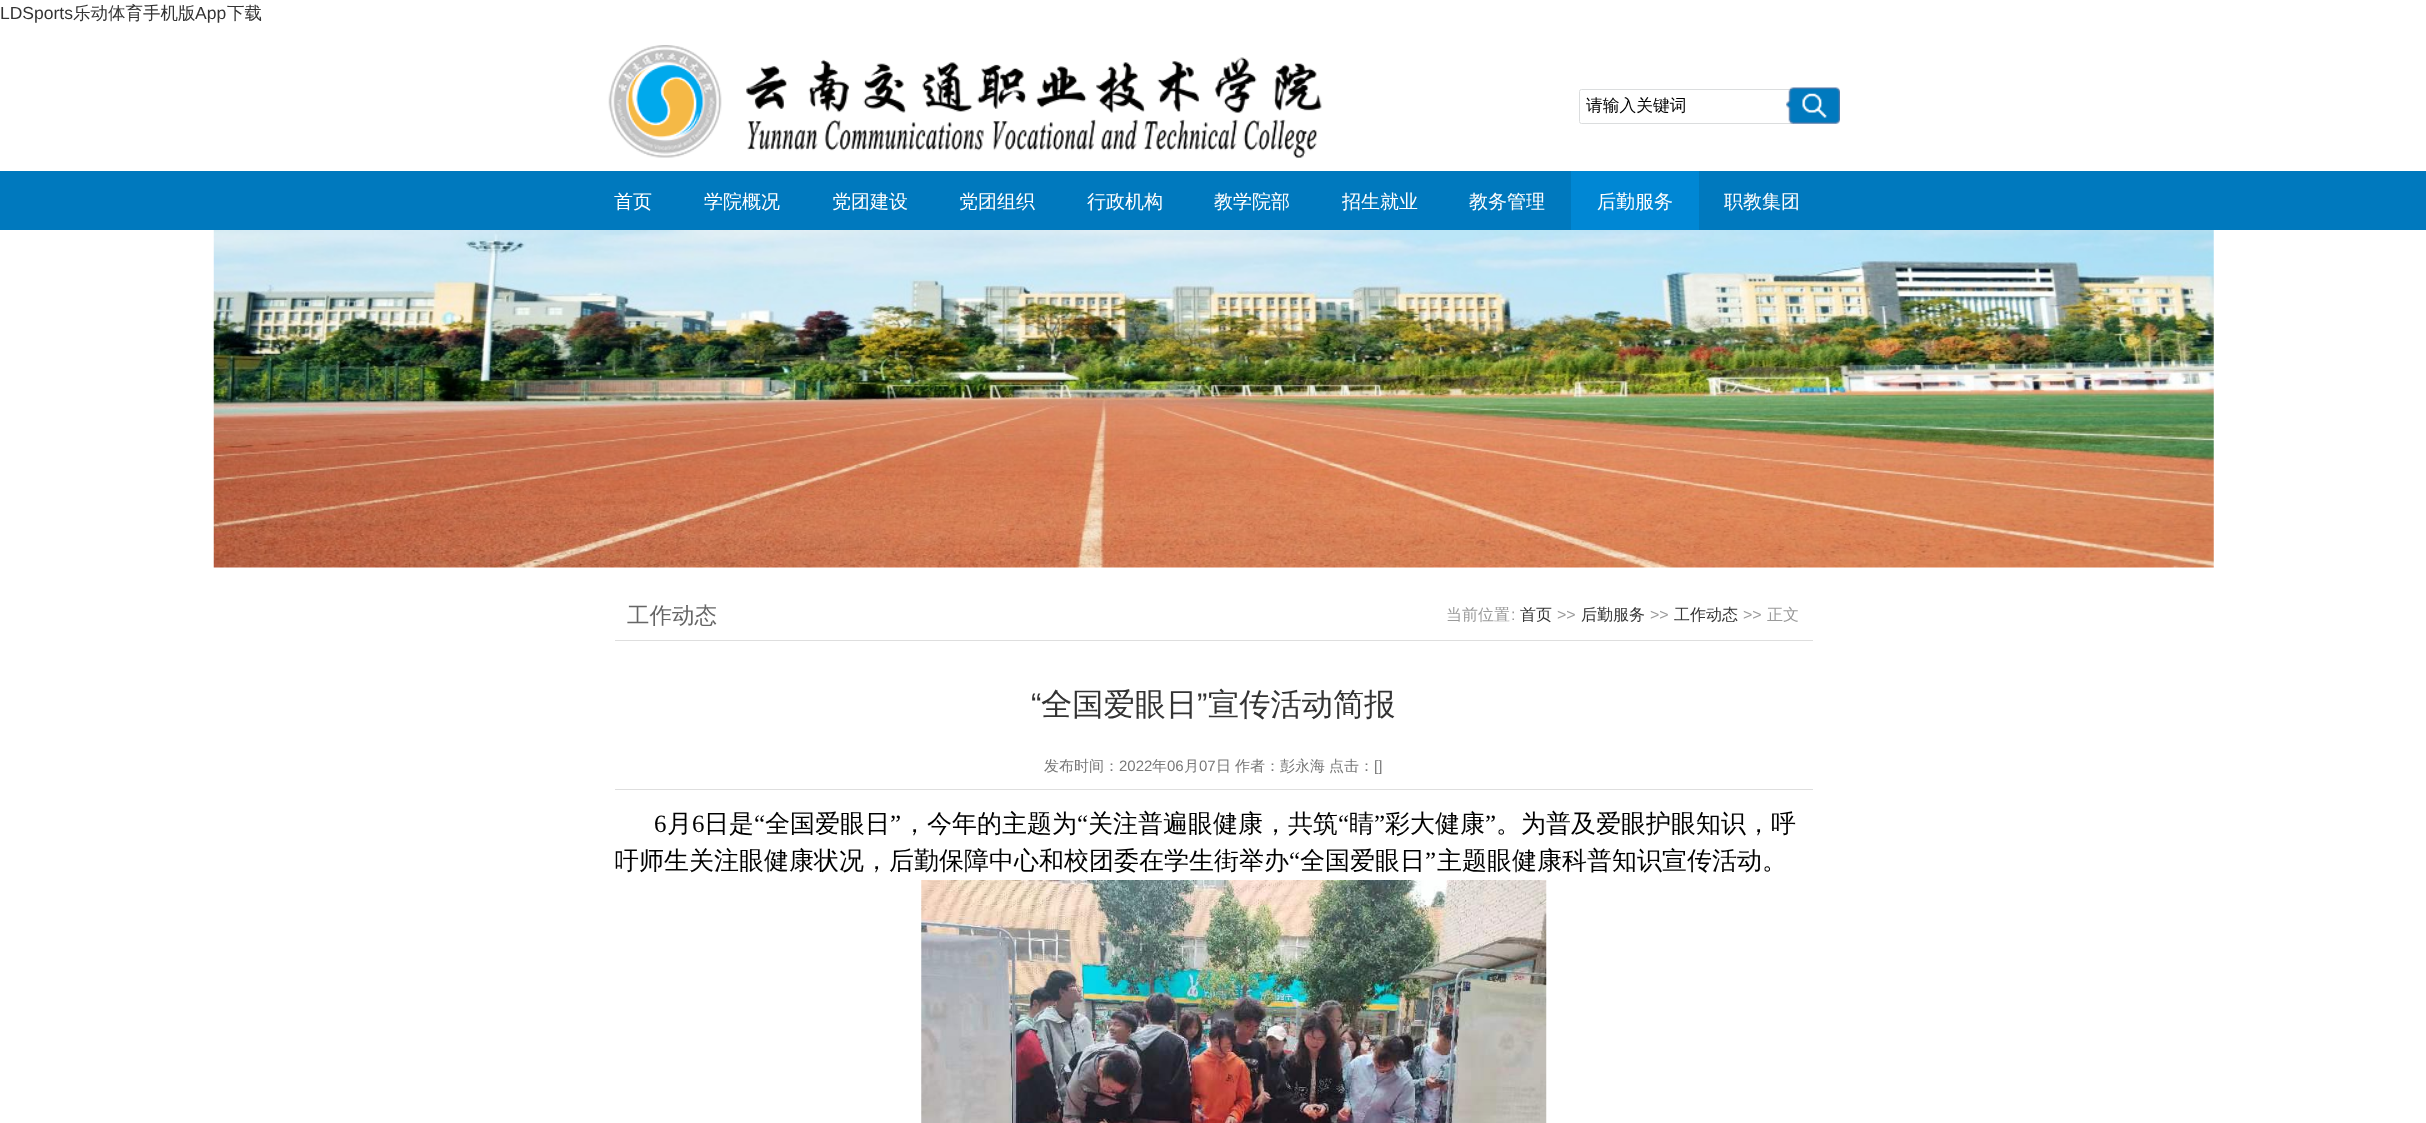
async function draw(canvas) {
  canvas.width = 2426;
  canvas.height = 1123;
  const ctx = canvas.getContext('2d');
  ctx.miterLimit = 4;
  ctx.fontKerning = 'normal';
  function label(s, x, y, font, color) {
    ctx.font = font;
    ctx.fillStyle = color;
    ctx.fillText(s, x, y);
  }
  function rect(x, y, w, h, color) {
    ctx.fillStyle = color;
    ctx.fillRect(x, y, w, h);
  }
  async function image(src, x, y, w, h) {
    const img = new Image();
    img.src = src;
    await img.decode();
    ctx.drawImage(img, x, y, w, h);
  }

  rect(0, 0, 2426, 1123, '#fff');
  label('LDSports', 0, 19, '17.5px Liberation Sans', '#333');
  label('乐动体育手机版', 73, 19, '500 17.5px WenQuanYi Zen Hei', '#333');
  label('App', 195, 19, '17.5px Liberation Sans', '#333');
  label('下载', 227, 19, '500 17.5px WenQuanYi Zen Hei', '#333');
  await image('assets/img1.png', 608, 45, 714, 113);
  ctx.beginPath();
  ctx.roundRect(1579.5, 89.5, 215, 34, 2);
  ctx.strokeStyle = '#dbddde';
  ctx.stroke();
  label('请输入关键词', 1586, 111, '500 16.75px WenQuanYi Zen Hei', '#000');
  await image('assets/img2.png', 1786, 87, 54, 37);
  rect(0, 171, 2426, 59, '#0079be');
  label('首页', 614, 208, '500 19px WenQuanYi Zen Hei', '#fff');
  label('学院概况', 704, 208, '500 19px WenQuanYi Zen Hei', '#fff');
  label('党团建设', 832, 208, '500 19px WenQuanYi Zen Hei', '#fff');
  label('党团组织', 959, 208, '500 19px WenQuanYi Zen Hei', '#fff');
  label('行政机构', 1087, 208, '500 19px WenQuanYi Zen Hei', '#fff');
  label('教学院部', 1214, 208, '500 19px WenQuanYi Zen Hei', '#fff');
  label('招生就业', 1342, 208, '500 19px WenQuanYi Zen Hei', '#fff');
  label('教务管理', 1469, 208, '500 19px WenQuanYi Zen Hei', '#fff');
  rect(1571, 171, 128, 59, '#0087d4');
  label('后勤服务', 1597, 208, '500 19px WenQuanYi Zen Hei', '#fff');
  label('职教集团', 1724, 208, '500 19px WenQuanYi Zen Hei', '#fff');
  await image('assets/img3.png', 213, 230, 2001, 338);
  rect(615, 640, 1198, 1, '#dedede');
  label('工作动态', 627, 623, '500 22.5px WenQuanYi Zen Hei', '#666');
  label('当前位置', 1446, 620, '500 16px WenQuanYi Zen Hei', '#9a9a9a');
  label(':', 1511, 620, '16px Liberation Sans', '#9a9a9a');
  label('首页', 1520, 620, '500 16px WenQuanYi Zen Hei', '#333');
  label('>>', 1557, 620, '16px Liberation Sans', '#9a9a9a');
  label('后勤服务', 1581, 620, '500 16px WenQuanYi Zen Hei', '#333');
  label('>>', 1650, 620, '16px Liberation Sans', '#9a9a9a');
  label('工作动态', 1674, 620, '500 16px WenQuanYi Zen Hei', '#333');
  label('>>', 1743, 620, '16px Liberation Sans', '#9a9a9a');
  label('正文', 1767, 620, '500 16px WenQuanYi Zen Hei', '#9a9a9a');
  label('“', 1031, 715, '31.25px Liberation Sans', '#333');
  label('全国爱眼日', 1041, 715, '500 31.25px WenQuanYi Zen Hei', '#333');
  label('”', 1197, 715, '31.25px Liberation Sans', '#333');
  label('宣传活动简报', 1208, 715, '500 31.25px WenQuanYi Zen Hei', '#333');
  rect(615, 789, 1198, 1, '#dedede');
  label('发布时间：', 1044, 771, '500 15px WenQuanYi Zen Hei', '#777');
  label('2022', 1119, 771, '15px Liberation Sans', '#777');
  label('年', 1152, 771, '500 15px WenQuanYi Zen Hei', '#777');
  label('06', 1167, 771, '15px Liberation Sans', '#777');
  label('月', 1184, 771, '500 15px WenQuanYi Zen Hei', '#777');
  label('07', 1199, 771, '15px Liberation Sans', '#777');
  label('日', 1216, 771, '500 15px WenQuanYi Zen Hei', '#777');
  label('作者：彭永海', 1235, 771, '500 15px WenQuanYi Zen Hei', '#777');
  label('点击：', 1329, 771, '500 15px WenQuanYi Zen Hei', '#777');
  label('[]', 1374, 771, '15px Liberation Sans', '#777');
  label('6', 654, 832, '25px Liberation Serif', '#000');
  label('月', 667, 832, '500 25px WenQuanYi Zen Hei', '#000');
  label('6', 692, 832, '25px Liberation Serif', '#000');
  label('日是', 704, 832, '500 25px WenQuanYi Zen Hei', '#000');
  label('“', 754, 832, '25px Liberation Serif', '#000');
  label('全国爱眼日', 765, 832, '500 25px WenQuanYi Zen Hei', '#000');
  label('”', 890, 832, '25px Liberation Serif', '#000');
  label('，今年的主题为', 902, 832, '500 25px WenQuanYi Zen Hei', '#000');
  label('“', 1077, 832, '25px Liberation Serif', '#000');
  label('关注普遍眼健康，共筑', 1088, 832, '500 25px WenQuanYi Zen Hei', '#000');
  label('“', 1338, 832, '25px Liberation Serif', '#000');
  label('睛', 1349, 832, '500 25px WenQuanYi Zen Hei', '#000');
  label('”', 1374, 832, '25px Liberation Serif', '#000');
  label('彩大健康', 1385, 832, '500 25px WenQuanYi Zen Hei', '#000');
  label('”', 1485, 832, '25px Liberation Serif', '#000');
  label('。为普及爱眼护眼知识，呼', 1496, 832, '500 25px WenQuanYi Zen Hei', '#000');
  label('吁师生关注眼健康状况，后勤保障中心和校团委在学生街举办', 614, 869, '500 25px WenQuanYi Zen Hei', '#000');
  label('“', 1289, 869, '25px Liberation Serif', '#000');
  label('全国爱眼日', 1300, 869, '500 25px WenQuanYi Zen Hei', '#000');
  label('”', 1425, 869, '25px Liberation Serif', '#000');
  label('主题眼健康科普知识宣传活动。', 1437, 869, '500 25px WenQuanYi Zen Hei', '#000');
  await image('assets/img4.png', 921, 880, 626, 243);
}

draw(document.querySelector('canvas'));
